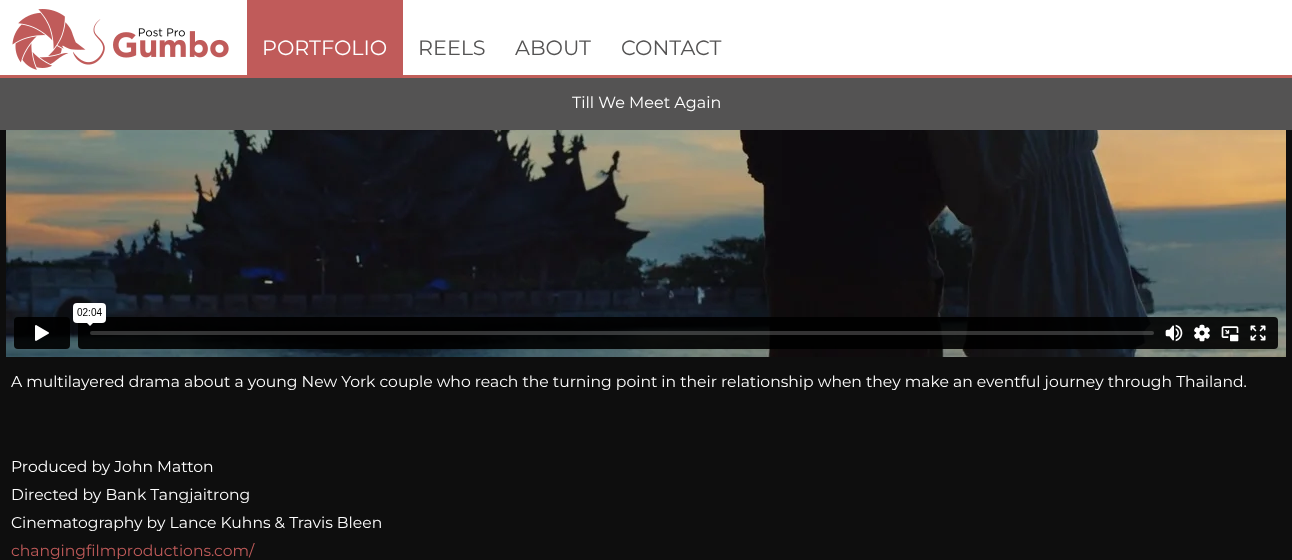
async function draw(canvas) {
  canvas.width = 1292;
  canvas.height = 560;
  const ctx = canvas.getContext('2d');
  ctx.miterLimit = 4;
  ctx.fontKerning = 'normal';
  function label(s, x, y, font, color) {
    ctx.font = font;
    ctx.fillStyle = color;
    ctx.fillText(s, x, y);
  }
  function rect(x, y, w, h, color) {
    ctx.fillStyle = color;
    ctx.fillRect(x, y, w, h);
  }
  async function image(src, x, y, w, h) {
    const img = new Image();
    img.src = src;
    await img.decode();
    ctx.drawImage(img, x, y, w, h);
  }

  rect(0, 0, 1292, 560, '#0e0e0e');
  rect(0, 0, 1292, 75, '#fff');
  await image('assets/img1.png', 12, 9, 217, 61);
  rect(0, 75, 1292, 3, '#c15f5a');
  rect(247, 0, 156, 78, '#c05b5a');
  label('PORTFOLIO', 262, 55, '100 20.75px Montserrat', '#fff');
  label('REELS', 418, 55, '100 20.75px Montserrat', '#545353');
  label('ABOUT', 515, 55, '100 20.75px Montserrat', '#545353');
  label('CONTACT', 621, 55, '100 20.75px Montserrat', '#545353');
  rect(0, 78, 1292, 52, '#545353');
  label('Till We Meet Again', 572, 108, '100 16px Montserrat', '#fff');
  await image('assets/img2.png', 6, 130, 1280, 227);
  label('A multilayered drama about a young New York couple who reach the turning point in their relationship when they make an eventful journey through Thailand.', 11, 387, '100 15.6px Montserrat', '#fff');
  label('Produced by John Matton', 11, 472, '100 15.6px Montserrat', '#fff');
  label('Directed by Bank Tangjaitrong', 11, 500, '100 15.6px Montserrat', '#fff');
  label('Cinematography by Lance Kuhns & Travis Bleen', 11, 528, '100 15.6px Montserrat', '#fff');
  label('changingfilmproductions.com/', 11, 556, '100 15.6px Montserrat', '#c05b5a');
}

draw(document.querySelector('canvas'));
